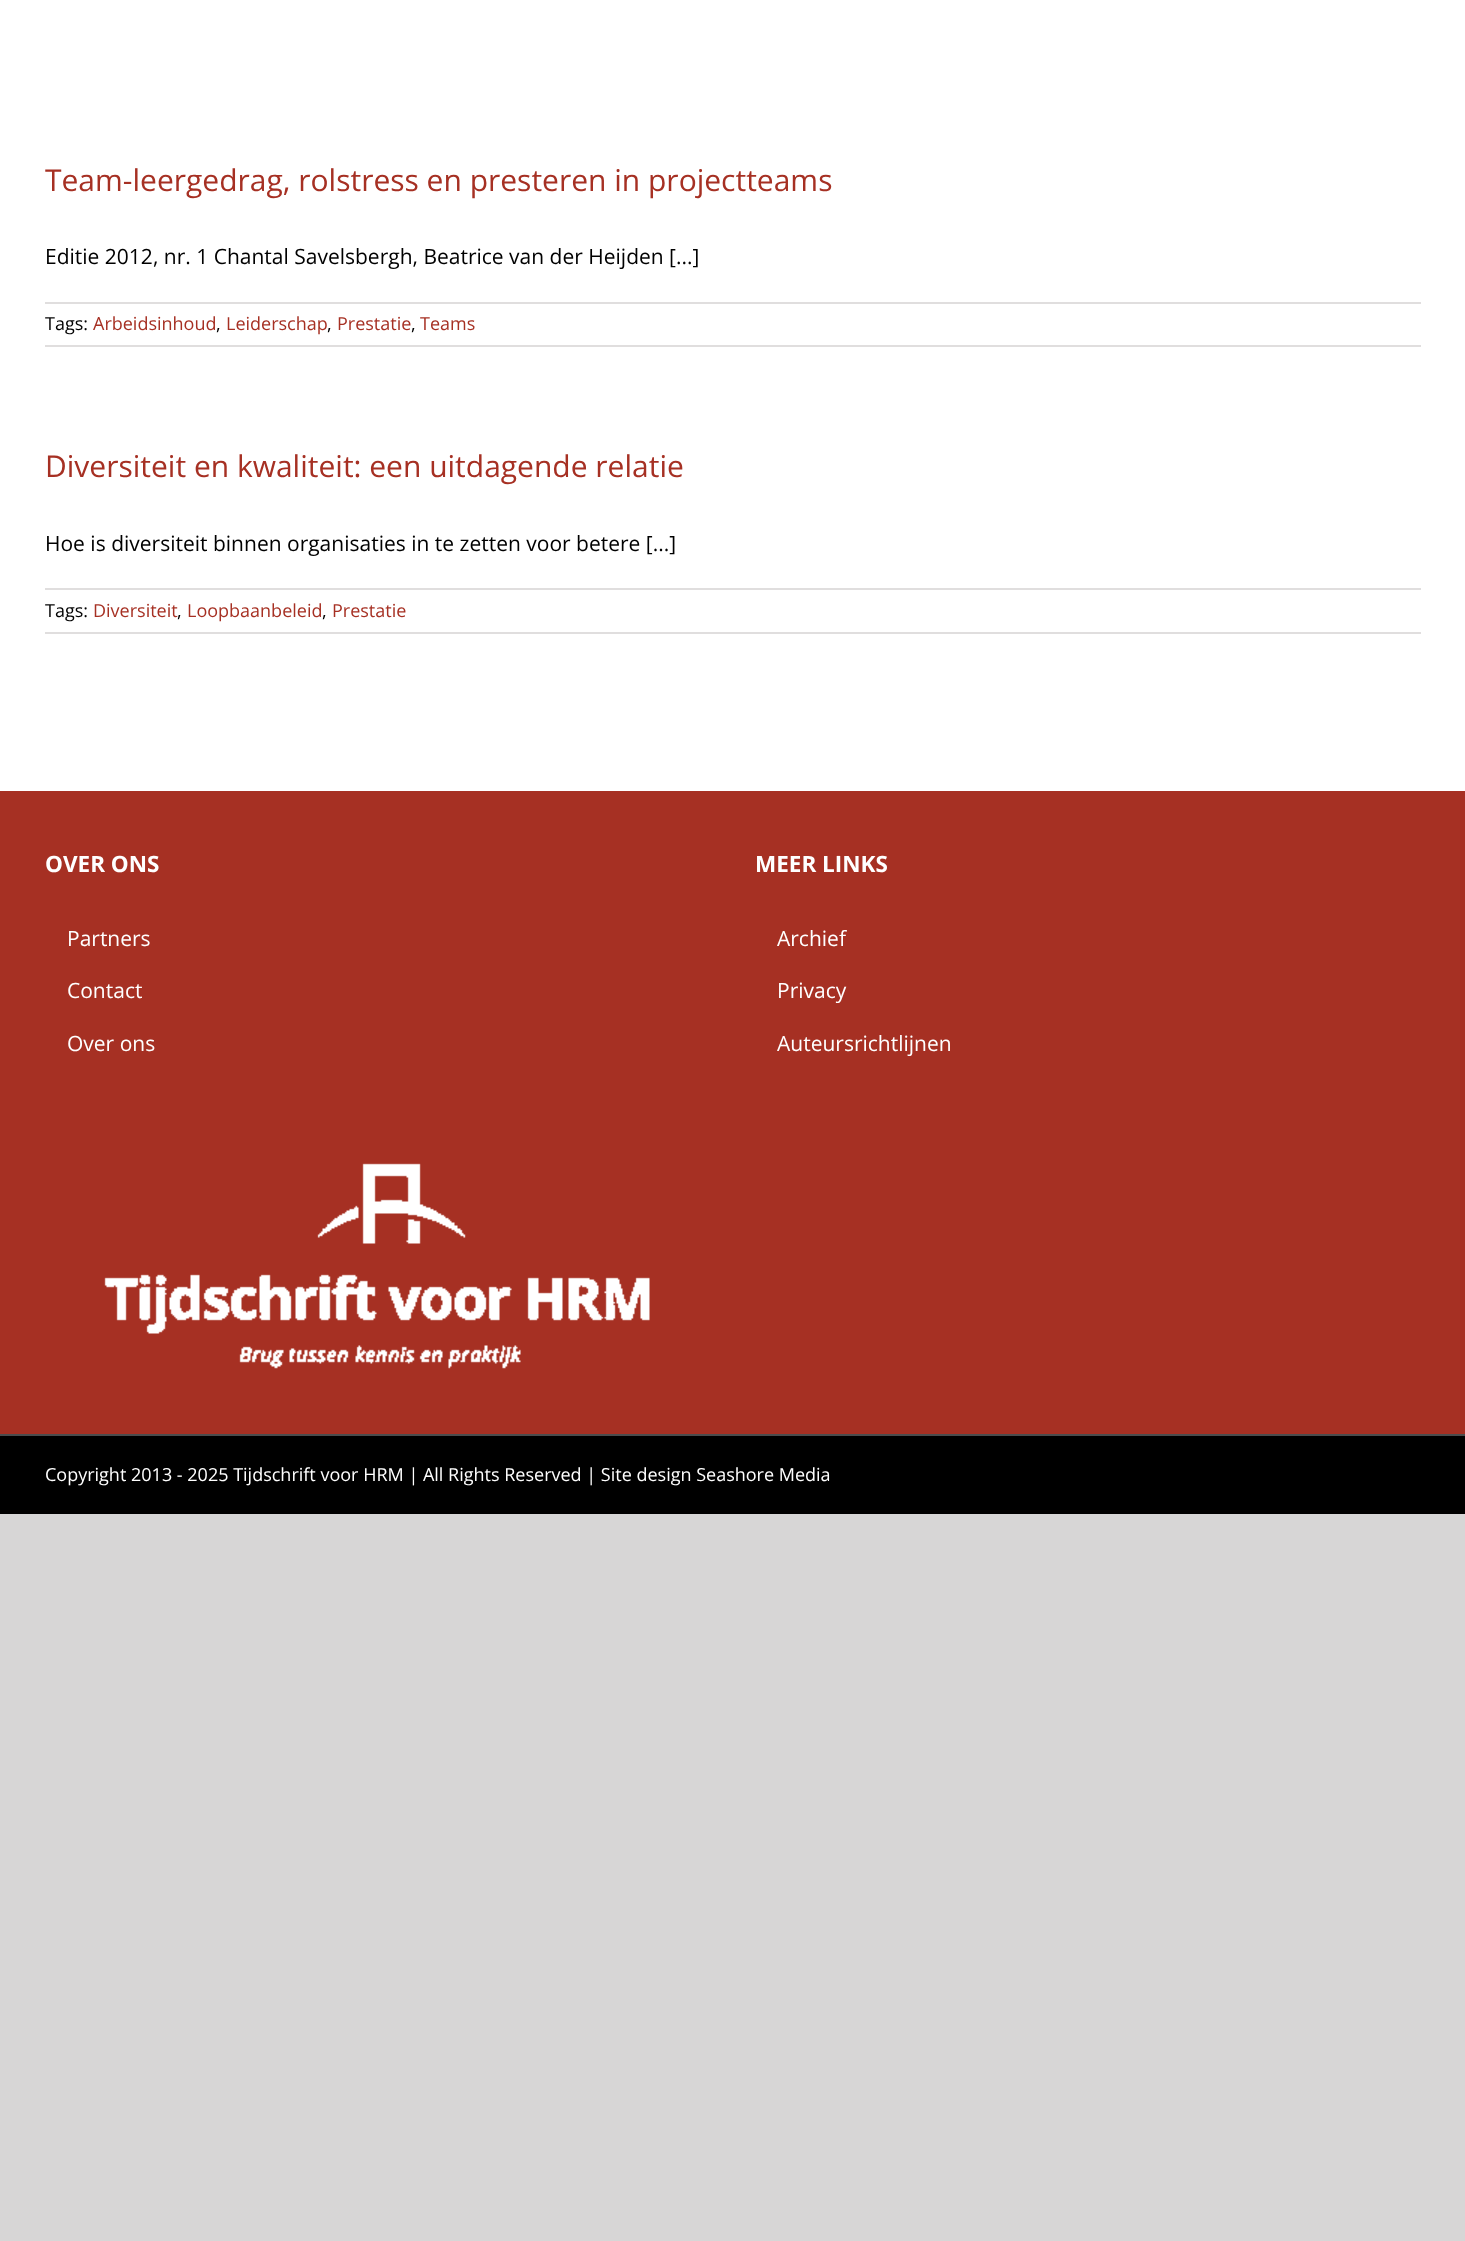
async function draw(canvas) {
  canvas.width = 1465;
  canvas.height = 2241;
  const ctx = canvas.getContext('2d');
  ctx.miterLimit = 4;
  ctx.fontKerning = 'normal';
  function label(s, x, y, font, color) {
    ctx.font = font;
    ctx.fillStyle = color;
    ctx.fillText(s, x, y);
  }
  function rect(x, y, w, h, color) {
    ctx.fillStyle = color;
    ctx.fillRect(x, y, w, h);
  }
  async function image(src, x, y, w, h) {
    const img = new Image();
    img.src = src;
    await img.decode();
    ctx.drawImage(img, x, y, w, h);
  }

  rect(0, 0, 1465, 2241, '#d7d6d6');
  rect(0, 0, 1465, 791, '#fff');
  label('Team-leergedrag, rolstress en presteren in projectteams', 45, 191, '30px Open Sans', '#a63023');
  label('Editie 2012, nr. 1 Chantal Savelsbergh, Beatrice van der Heijden [...]', 45, 264, '21px Open Sans', '#000');
  rect(45, 302, 1376, 2, '#e0dede');
  rect(45, 345, 1376, 2, '#e0dede');
  label('Tags:', 45, 330, '18px Open Sans', '#000');
  label('Arbeidsinhoud', 93, 330, '18px Open Sans', '#a63023');
  label(',', 216, 330, '18px Open Sans', '#000');
  label('Leiderschap', 226, 330, '18px Open Sans', '#a63023');
  label(',', 327, 330, '18px Open Sans', '#000');
  label('Prestatie', 337, 330, '18px Open Sans', '#a63023');
  label(',', 411, 330, '18px Open Sans', '#000');
  label('Teams', 420, 330, '18px Open Sans', '#a63023');
  label('Diversiteit en kwaliteit: een uitdagende relatie', 45, 477, '30px Open Sans', '#a63023');
  label('Hoe is diversiteit binnen organisaties in te zetten voor betere [...]', 45, 551, '21px Open Sans', '#000');
  rect(45, 588, 1376, 2, '#e0dede');
  rect(45, 632, 1376, 2, '#e0dede');
  label('Tags:', 45, 617, '18px Open Sans', '#000');
  label('Diversiteit', 93, 617, '18px Open Sans', '#a63023');
  label(',', 177, 617, '18px Open Sans', '#000');
  label('Loopbaanbeleid', 187, 617, '18px Open Sans', '#a63023');
  label(',', 322, 617, '18px Open Sans', '#000');
  label('Prestatie', 332, 617, '18px Open Sans', '#a63023');
  rect(0, 791, 1465, 643, '#a63023');
  label('OVER ONS', 45, 872, 'bold 22.5px Open Sans', '#fff');
  label('Partners', 67, 946, '21px Open Sans', '#fff');
  label('Contact', 67, 998, '21px Open Sans', '#fff');
  label('Over ons', 67, 1051, '21px Open Sans', '#fff');
  label('MEER LINKS', 755, 872, 'bold 22.5px Open Sans', '#fff');
  label('Archief', 777, 946, '21px Open Sans', '#fff');
  label('Privacy', 777, 998, '21px Open Sans', '#fff');
  label('Auteursrichtlijnen', 777, 1051, '21px Open Sans', '#fff');
  await image('assets/img1.png', 104, 1163, 546, 206);
  rect(0, 1436, 1465, 78, '#000');
  rect(0, 1434, 1465, 2, '#4b4c4d');
  label('Copyright 2013 - 2025 Tijdschrift voor HRM | All Rights Reserved | Site design Seashore Media', 45, 1481, '18px Open Sans', '#fff');
}

draw(document.querySelector('canvas'));
